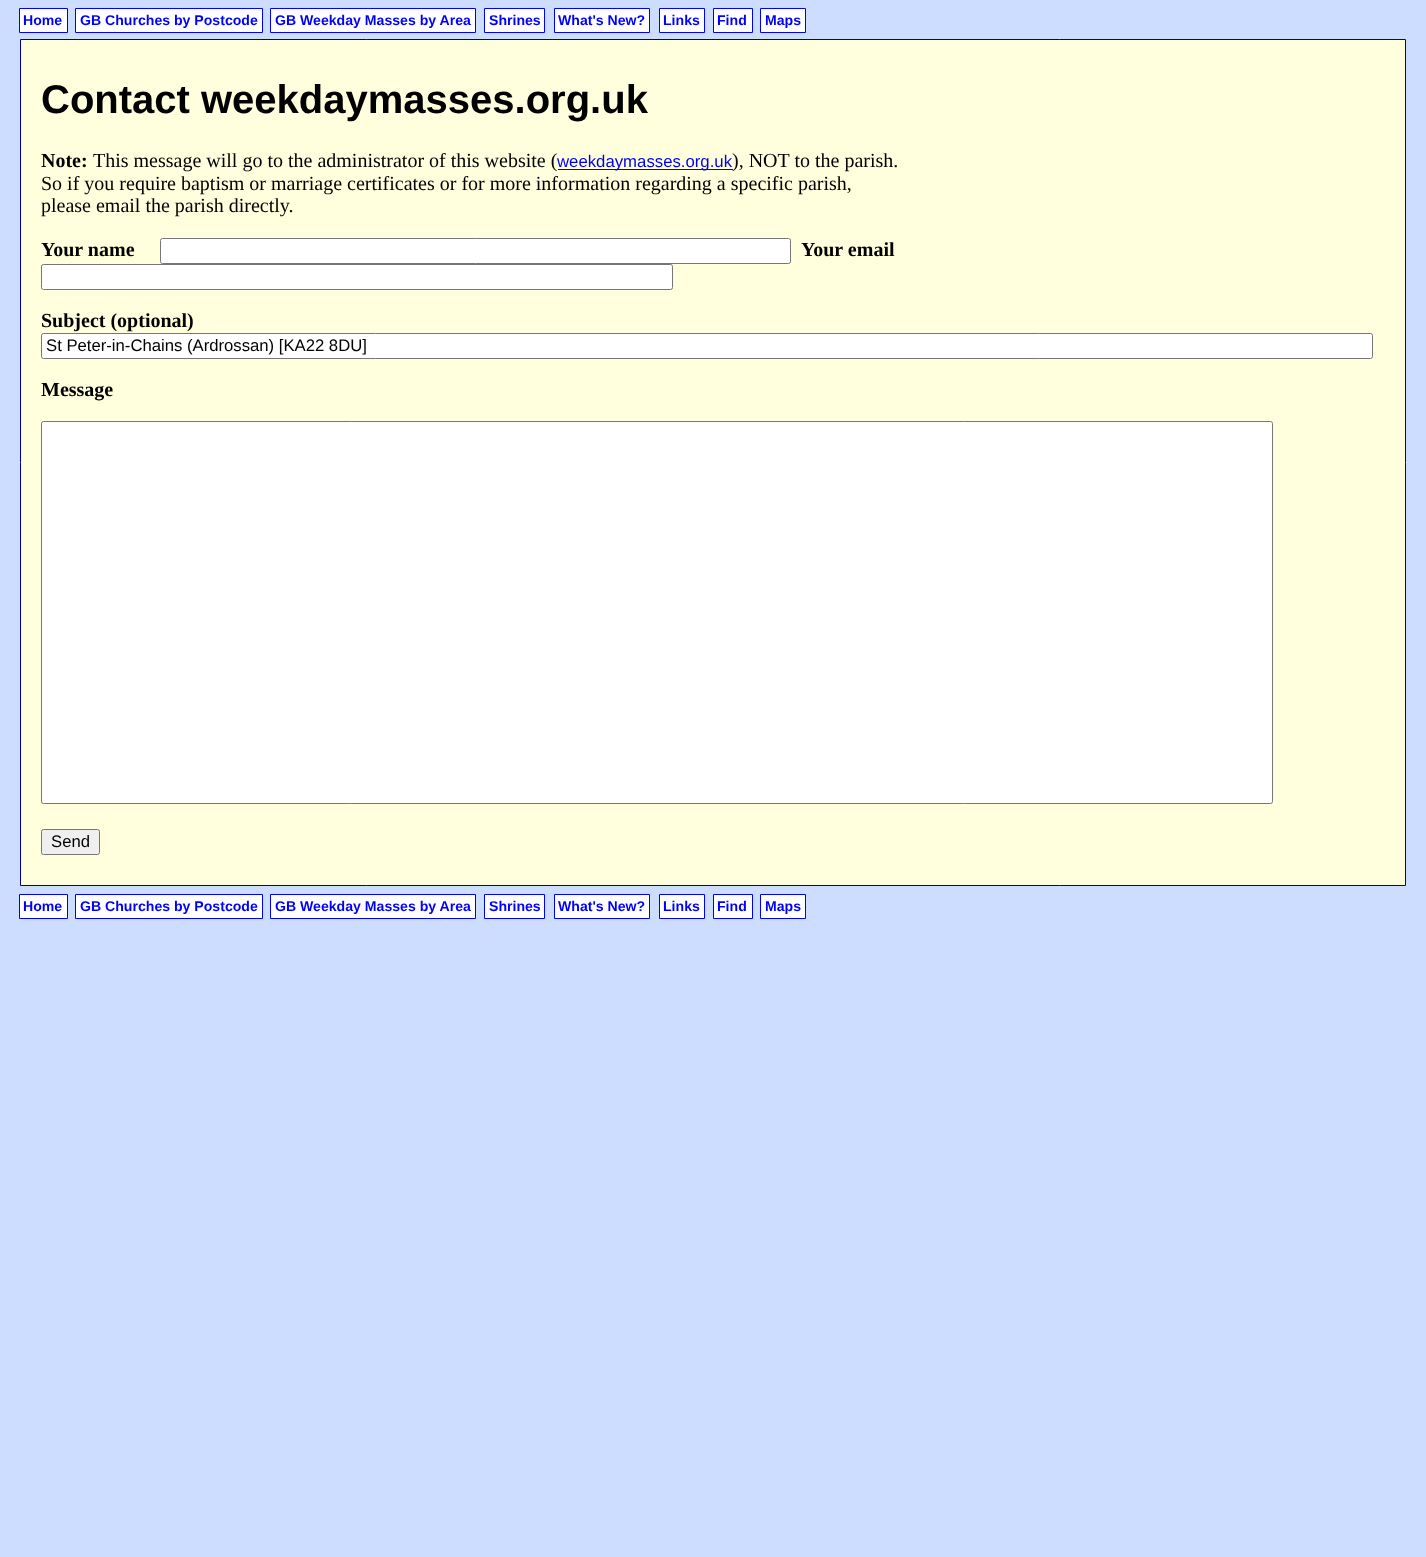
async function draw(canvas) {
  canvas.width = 1426;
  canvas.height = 1557;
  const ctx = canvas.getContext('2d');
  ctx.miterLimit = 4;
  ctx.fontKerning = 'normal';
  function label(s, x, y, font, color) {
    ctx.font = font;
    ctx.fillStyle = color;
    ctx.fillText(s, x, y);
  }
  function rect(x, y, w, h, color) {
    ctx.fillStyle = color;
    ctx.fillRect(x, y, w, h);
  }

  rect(0, 0, 1426, 1557, '#cdf');
  ctx.fillStyle = '#fff';
  ctx.beginPath();
  ctx.rect(19.5, 8.5, 48, 24);
  ctx.fill();
  ctx.strokeStyle = '#00f';
  ctx.stroke();
  label('Home', 23, 25, 'bold 14.1px Liberation Sans', '#00f');
  ctx.fillStyle = '#fff';
  ctx.beginPath();
  ctx.rect(75.5, 8.5, 187, 24);
  ctx.fill();
  ctx.stroke();
  label('GB Churches by Postcode', 80, 25, 'bold 14.1px Liberation Sans', '#00f');
  ctx.fillStyle = '#fff';
  ctx.beginPath();
  ctx.rect(270.5, 8.5, 205, 24);
  ctx.fill();
  ctx.stroke();
  label('GB Weekday Masses by Area', 275, 25, 'bold 14.1px Liberation Sans', '#00f');
  ctx.fillStyle = '#fff';
  ctx.beginPath();
  ctx.rect(484.5, 8.5, 60, 24);
  ctx.fill();
  ctx.stroke();
  label('Shrines', 489, 25, 'bold 14.1px Liberation Sans', '#00f');
  ctx.fillStyle = '#fff';
  ctx.beginPath();
  ctx.rect(554.5, 8.5, 95, 24);
  ctx.fill();
  ctx.stroke();
  label('What\'s New?', 558, 25, 'bold 14.1px Liberation Sans', '#00f');
  ctx.fillStyle = '#fff';
  ctx.beginPath();
  ctx.rect(659.5, 8.5, 45, 24);
  ctx.fill();
  ctx.stroke();
  label('Links', 663, 25, 'bold 14.1px Liberation Sans', '#00f');
  ctx.fillStyle = '#fff';
  ctx.beginPath();
  ctx.rect(713.5, 8.5, 39, 24);
  ctx.fill();
  ctx.stroke();
  label('Find', 717, 25, 'bold 14.1px Liberation Sans', '#00f');
  ctx.fillStyle = '#fff';
  ctx.beginPath();
  ctx.rect(760.5, 8.5, 45, 24);
  ctx.fill();
  ctx.stroke();
  label('Maps', 765, 25, 'bold 14.1px Liberation Sans', '#00f');
  ctx.fillStyle = '#ffd';
  ctx.beginPath();
  ctx.rect(20.5, 39.5, 1385, 846);
  ctx.fill();
  ctx.strokeStyle = '#009';
  ctx.stroke();
  label('Contact weekdaymasses.org.uk', 41, 113, 'bold 40px Liberation Sans', '#000');
  label('Note:', 41, 167, 'bold 20px Liberation Serif', '#000');
  label('This message will go to the administrator of this website (', 93, 167, '20px Liberation Serif', '#000');
  rect(558, 169, 175, 1, '#00e');
  label('weekdaymasses.org.uk', 557, 167, '16.75px Liberation Sans', '#00e');
  label('), NOT to the parish.', 732, 167, '20px Liberation Serif', '#000');
  label('So if you require baptism or marriage certificates or for more information regarding a specific parish,', 41, 190, '20px Liberation Serif', '#000');
  label('please email the parish directly.', 41, 212, '20px Liberation Serif', '#000');
  label('Your name', 41, 256, 'bold 20px Liberation Serif', '#000');
  ctx.fillStyle = '#fff';
  ctx.beginPath();
  ctx.roundRect(160.5, 238.5, 630, 25, 2);
  ctx.fill();
  ctx.strokeStyle = '#767676';
  ctx.stroke();
  label('Your email', 801, 256, 'bold 20px Liberation Serif', '#000');
  ctx.fillStyle = '#fff';
  ctx.beginPath();
  ctx.roundRect(41.5, 264.5, 631, 25, 2);
  ctx.fill();
  ctx.stroke();
  label('Subject (optional)', 41, 327, 'bold 20px Liberation Serif', '#000');
  ctx.fillStyle = '#fff';
  ctx.beginPath();
  ctx.roundRect(41.5, 333.5, 1331, 25, 2);
  ctx.fill();
  ctx.stroke();
  label('St Peter-in-Chains (Ardrossan) [KA22 8DU]', 46, 351, '16.7px Liberation Sans', '#000');
  label('Message', 41, 396, 'bold 20px Liberation Serif', '#000');
  ctx.fillStyle = '#fff';
  ctx.beginPath();
  ctx.roundRect(41.5, 421.5, 1231, 382, 2);
  ctx.fill();
  ctx.stroke();
  ctx.fillStyle = '#efefef';
  ctx.beginPath();
  ctx.roundRect(41.5, 829.5, 58, 25, 2);
  ctx.fill();
  ctx.stroke();
  label('Send', 51, 847, '16.7px Liberation Sans', '#000');
  ctx.fillStyle = '#fff';
  ctx.beginPath();
  ctx.rect(19.5, 894.5, 48, 24);
  ctx.fill();
  ctx.strokeStyle = '#00f';
  ctx.stroke();
  label('Home', 23, 911, 'bold 14.1px Liberation Sans', '#00f');
  ctx.fillStyle = '#fff';
  ctx.beginPath();
  ctx.rect(75.5, 894.5, 187, 24);
  ctx.fill();
  ctx.stroke();
  label('GB Churches by Postcode', 80, 911, 'bold 14.1px Liberation Sans', '#00f');
  ctx.fillStyle = '#fff';
  ctx.beginPath();
  ctx.rect(270.5, 894.5, 205, 24);
  ctx.fill();
  ctx.stroke();
  label('GB Weekday Masses by Area', 275, 911, 'bold 14.1px Liberation Sans', '#00f');
  ctx.fillStyle = '#fff';
  ctx.beginPath();
  ctx.rect(484.5, 894.5, 60, 24);
  ctx.fill();
  ctx.stroke();
  label('Shrines', 489, 911, 'bold 14.1px Liberation Sans', '#00f');
  ctx.fillStyle = '#fff';
  ctx.beginPath();
  ctx.rect(554.5, 894.5, 95, 24);
  ctx.fill();
  ctx.stroke();
  label('What\'s New?', 558, 911, 'bold 14.1px Liberation Sans', '#00f');
  ctx.fillStyle = '#fff';
  ctx.beginPath();
  ctx.rect(659.5, 894.5, 45, 24);
  ctx.fill();
  ctx.stroke();
  label('Links', 663, 911, 'bold 14.1px Liberation Sans', '#00f');
  ctx.fillStyle = '#fff';
  ctx.beginPath();
  ctx.rect(713.5, 894.5, 39, 24);
  ctx.fill();
  ctx.stroke();
  label('Find', 717, 911, 'bold 14.1px Liberation Sans', '#00f');
  ctx.fillStyle = '#fff';
  ctx.beginPath();
  ctx.rect(760.5, 894.5, 45, 24);
  ctx.fill();
  ctx.stroke();
  label('Maps', 765, 911, 'bold 14.1px Liberation Sans', '#00f');
}

draw(document.querySelector('canvas'));
